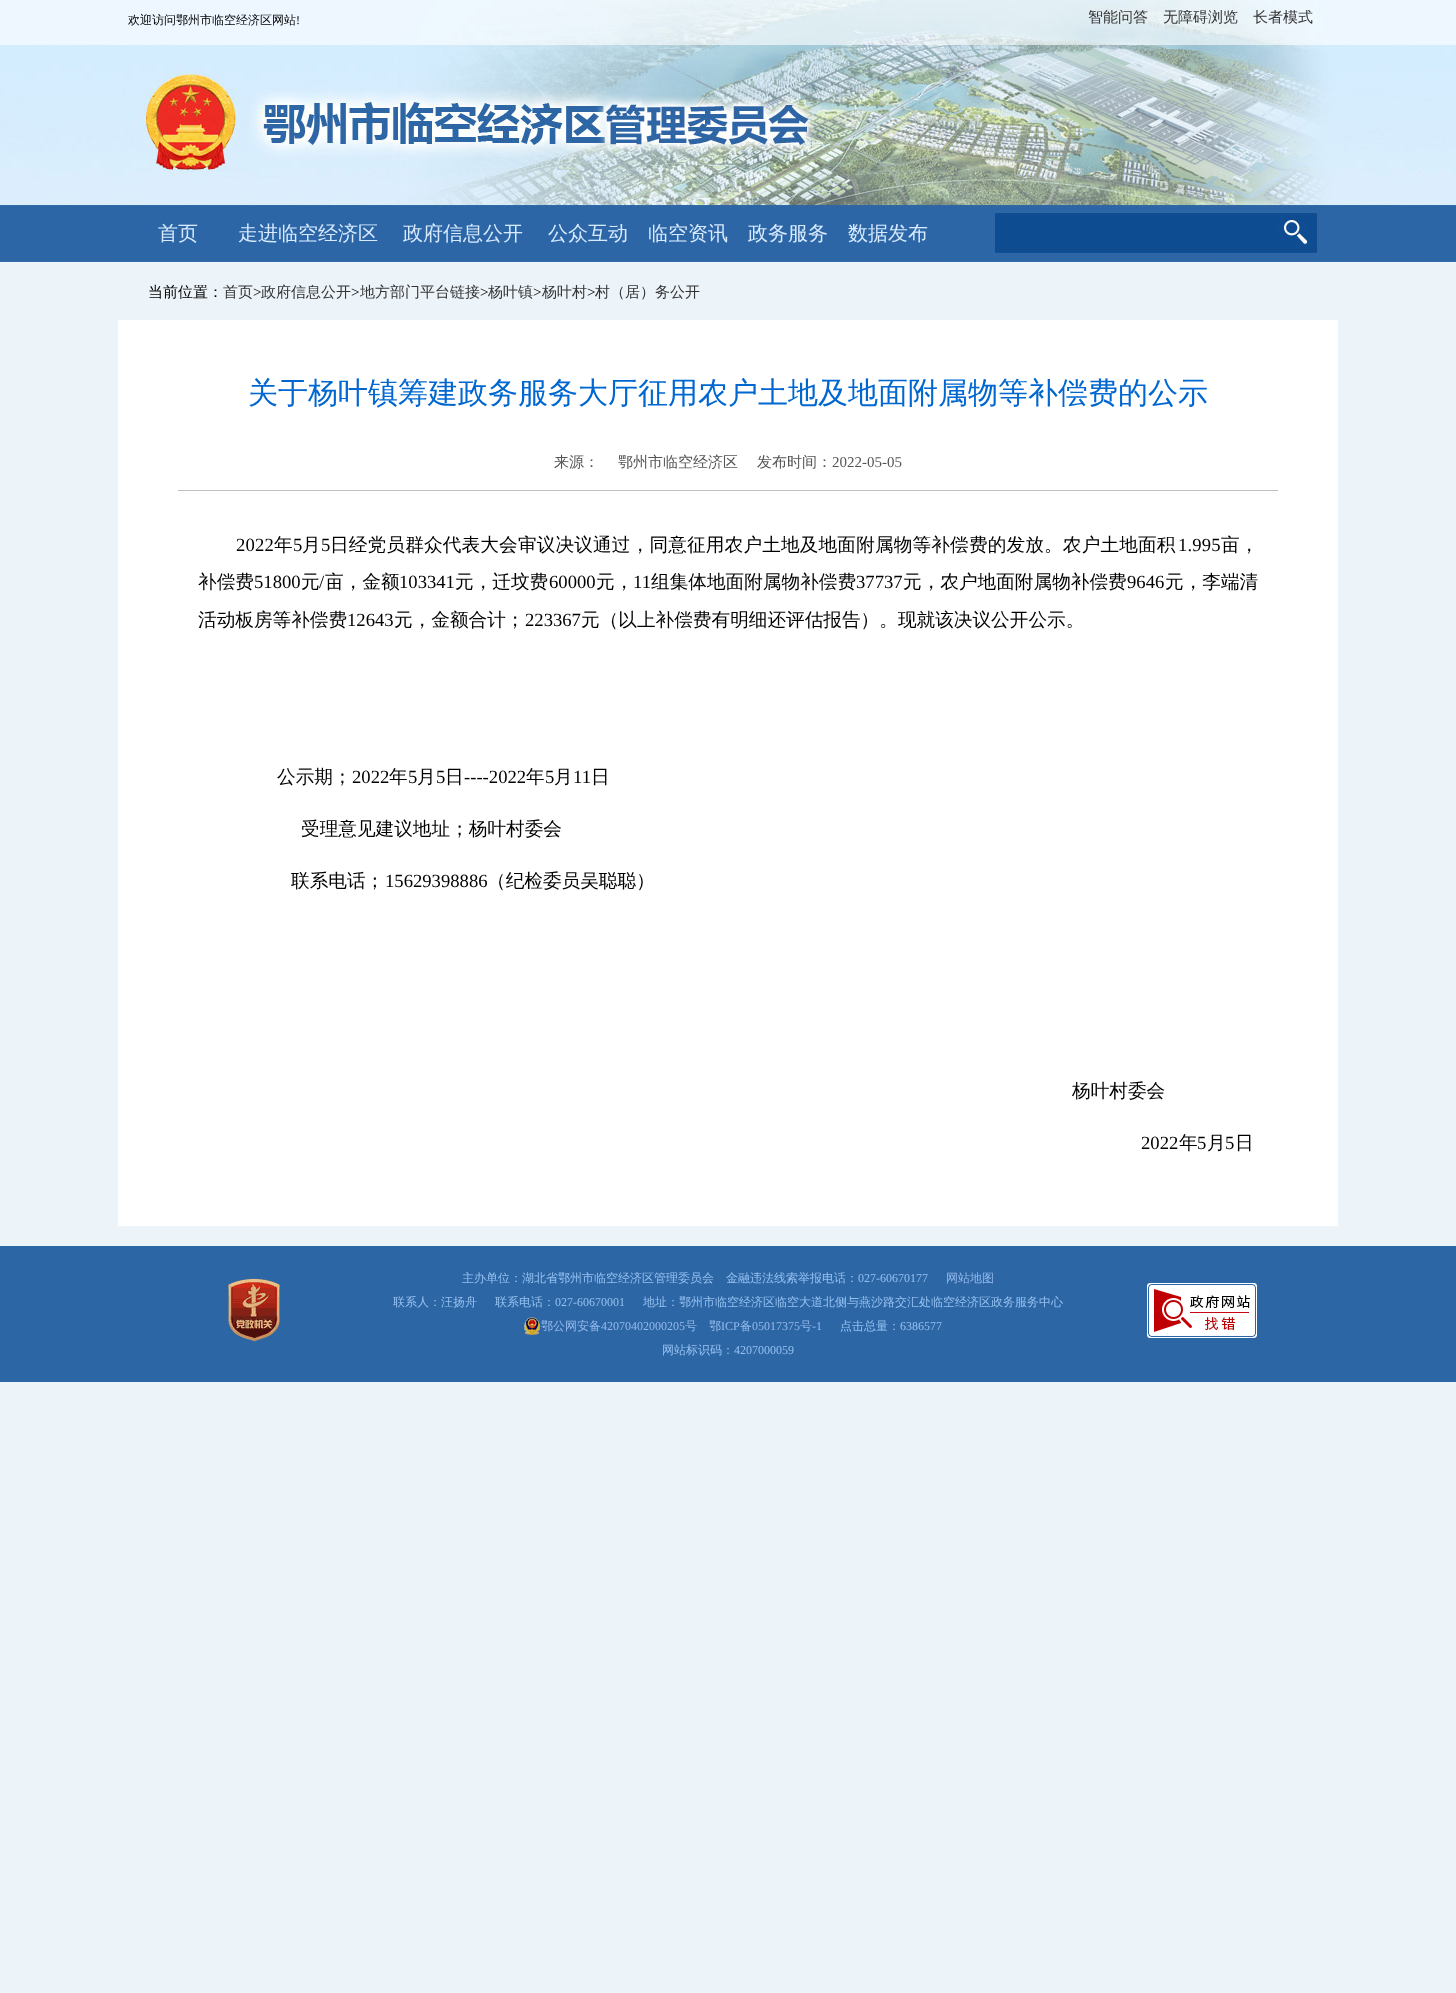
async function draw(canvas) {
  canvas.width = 1456;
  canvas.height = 1993;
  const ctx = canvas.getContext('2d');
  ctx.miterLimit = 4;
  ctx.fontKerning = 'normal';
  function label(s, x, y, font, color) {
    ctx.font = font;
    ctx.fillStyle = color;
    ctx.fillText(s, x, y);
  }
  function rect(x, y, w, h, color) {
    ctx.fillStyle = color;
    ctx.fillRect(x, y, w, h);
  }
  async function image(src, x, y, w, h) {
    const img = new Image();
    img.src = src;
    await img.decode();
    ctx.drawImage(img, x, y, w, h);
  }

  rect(0, 0, 1456, 1993, '#ecf3f9');
  await image('assets/img1.png', 0, 0, 1456, 262);
  label('欢迎访问鄂州市临空经济区网站', 128, 24, '500 12px WenQuanYi Zen Hei', '#000');
  label('!', 296, 24, '12px Liberation Serif', '#000');
  label('智能问答', 1088, 22, '500 15px WenQuanYi Zen Hei', '#343434');
  ctx.save();
  ctx.beginPath();
  ctx.rect(848, 10, 480, 40);
  ctx.clip();
  label('无障碍浏览', 1163, 22, '500 15px WenQuanYi Zen Hei', '#343434');
  label('长者模式', 1253, 22, '500 15px WenQuanYi Zen Hei', '#343434');
  ctx.restore();
  label('首页', 158, 240, '500 20px WenQuanYi Zen Hei', '#d7eaff');
  label('走进临空经济区', 238, 240, '500 20px WenQuanYi Zen Hei', '#d7eaff');
  label('政府信息公开', 403, 240, '500 20px WenQuanYi Zen Hei', '#d7eaff');
  label('公众互动', 548, 240, '500 20px WenQuanYi Zen Hei', '#d7eaff');
  label('临空资讯', 648, 240, '500 20px WenQuanYi Zen Hei', '#d7eaff');
  label('政务服务', 748, 240, '500 20px WenQuanYi Zen Hei', '#d7eaff');
  label('数据发布', 848, 240, '500 20px WenQuanYi Zen Hei', '#d7eaff');
  label('当前位置：', 148, 297, '500 15px WenQuanYi Zen Hei', '#000');
  label('首页', 223, 297, '500 15px WenQuanYi Zen Hei', '#343434');
  label('>', 253, 297, '15px Liberation Serif', '#000');
  label('政府信息公开', 261, 297, '500 15px WenQuanYi Zen Hei', '#343434');
  label('>', 351, 297, '15px Liberation Serif', '#000');
  label('地方部门平台链接', 360, 297, '500 15px WenQuanYi Zen Hei', '#343434');
  label('>', 480, 297, '15px Liberation Serif', '#000');
  label('杨叶镇', 488, 297, '500 15px WenQuanYi Zen Hei', '#343434');
  label('>', 533, 297, '15px Liberation Serif', '#000');
  label('杨叶村', 542, 297, '500 15px WenQuanYi Zen Hei', '#343434');
  label('>', 587, 297, '15px Liberation Serif', '#000');
  label('村（居）务公开', 595, 297, '500 15px WenQuanYi Zen Hei', '#343434');
  rect(118, 320, 1220, 906, '#fff');
  label('关于杨叶镇筹建政务服务大厅征用农户土地及地面附属物等补偿费的公示', 248, 403, '500 30px WenQuanYi Zen Hei', '#0067d1');
  rect(178, 490, 1100, 1, '#c1c1c1');
  label('来源：', 554, 467, '500 15px WenQuanYi Zen Hei', '#555');
  label('鄂州市临空经济区', 618, 467, '500 15px WenQuanYi Zen Hei', '#555');
  label('发布时间：', 757, 467, '500 15px WenQuanYi Zen Hei', '#555');
  label('2022-05-05', 832, 467, '15px Liberation Serif', '#555');
  ctx.letterSpacing = '0.15px';
  label('2022', 236, 551, '18.65px Liberation Serif', '#000');
  label('年', 274, 551, '500 18.65px WenQuanYi Zen Hei', '#000');
  label('5', 293, 551, '18.65px Liberation Serif', '#000');
  label('月', 302, 551, '500 18.65px WenQuanYi Zen Hei', '#000');
  label('5', 321, 551, '18.65px Liberation Serif', '#000');
  label('日经党员群众代表大会审议决议通过，同意征用农户土地及地面附属物等补偿费的发放。农户土地面积', 330, 551, '500 18.65px WenQuanYi Zen Hei', '#000');
  label('1.995', 1178, 551, '18.65px Liberation Serif', '#000');
  label('亩，', 1221, 551, '500 18.65px WenQuanYi Zen Hei', '#000');
  ctx.letterSpacing = '0px';
  label('补偿费', 198, 588, '500 18.65px WenQuanYi Zen Hei', '#000');
  label('51800', 254, 588, '18.65px Liberation Serif', '#000');
  label('元', 301, 588, '500 18.65px WenQuanYi Zen Hei', '#000');
  label('/', 319, 588, '18.65px Liberation Serif', '#000');
  label('亩，金额', 325, 588, '500 18.65px WenQuanYi Zen Hei', '#000');
  label('103341', 399, 588, '18.65px Liberation Serif', '#000');
  label('元，迁坟费', 455, 588, '500 18.65px WenQuanYi Zen Hei', '#000');
  label('60000', 549, 588, '18.65px Liberation Serif', '#000');
  label('元，', 596, 588, '500 18.65px WenQuanYi Zen Hei', '#000');
  label('11', 633, 588, '18.65px Liberation Serif', '#000');
  label('组集体地面附属物补偿费', 651, 588, '500 18.65px WenQuanYi Zen Hei', '#000');
  label('37737', 856, 588, '18.65px Liberation Serif', '#000');
  label('元，农户地面附属物补偿费', 903, 588, '500 18.65px WenQuanYi Zen Hei', '#000');
  label('9646', 1127, 588, '18.65px Liberation Serif', '#000');
  label('元，李端清', 1165, 588, '500 18.65px WenQuanYi Zen Hei', '#000');
  label('活动板房等补偿费', 198, 626, '500 18.65px WenQuanYi Zen Hei', '#000');
  label('12643', 347, 626, '18.65px Liberation Serif', '#000');
  label('元，金额合计；', 394, 626, '500 18.65px WenQuanYi Zen Hei', '#000');
  label('223367', 525, 626, '18.65px Liberation Serif', '#000');
  label('元（以上补偿费有明细还评估报告）。现就该决议公开公示。', 581, 626, '500 18.65px WenQuanYi Zen Hei', '#000');
  label('公示期；', 277, 783, '500 18.65px WenQuanYi Zen Hei', '#000');
  label('2022', 352, 783, '18.65px Liberation Serif', '#000');
  label('年', 389, 783, '500 18.65px WenQuanYi Zen Hei', '#000');
  label('5', 408, 783, '18.65px Liberation Serif', '#000');
  label('月', 417, 783, '500 18.65px WenQuanYi Zen Hei', '#000');
  label('5', 436, 783, '18.65px Liberation Serif', '#000');
  label('日', 445, 783, '500 18.65px WenQuanYi Zen Hei', '#000');
  label('----2022', 464, 783, '18.65px Liberation Serif', '#000');
  label('年', 526, 783, '500 18.65px WenQuanYi Zen Hei', '#000');
  label('5', 545, 783, '18.65px Liberation Serif', '#000');
  label('月', 554, 783, '500 18.65px WenQuanYi Zen Hei', '#000');
  label('11', 573, 783, '18.65px Liberation Serif', '#000');
  label('日', 591, 783, '500 18.65px WenQuanYi Zen Hei', '#000');
  label('受理意见建议地址；杨叶村委会', 301, 835, '500 18.65px WenQuanYi Zen Hei', '#000');
  label('联系电话；', 291, 887, '500 18.65px WenQuanYi Zen Hei', '#000');
  label('15629398886', 385, 887, '18.65px Liberation Serif', '#000');
  label('（纪检委员吴聪聪）', 487, 887, '500 18.65px WenQuanYi Zen Hei', '#000');
  label('杨叶村委会', 1072, 1097, '500 18.65px WenQuanYi Zen Hei', '#000');
  label('2022', 1141, 1149, '18.65px Liberation Serif', '#000');
  label('年', 1179, 1149, '500 18.65px WenQuanYi Zen Hei', '#000');
  label('5', 1197, 1149, '18.65px Liberation Serif', '#000');
  label('月', 1207, 1149, '500 18.65px WenQuanYi Zen Hei', '#000');
  label('5', 1225, 1149, '18.65px Liberation Serif', '#000');
  label('日', 1235, 1149, '500 18.65px WenQuanYi Zen Hei', '#000');
  rect(0, 1246, 1456, 136, '#2d66a5');
  await image('assets/img2.png', 228, 1278, 52, 64);
  label('主办单位：湖北省鄂州市临空经济区管理委员会　金融违法线索举报电话：', 462, 1282, '500 12px WenQuanYi Zen Hei', '#95c1f1');
  label('027-60670177', 858, 1282, '12px Liberation Serif', '#95c1f1');
  label('网站地图', 946, 1282, '500 12px WenQuanYi Zen Hei', '#95baec');
  label('联系人：汪扬舟', 393, 1306, '500 12px WenQuanYi Zen Hei', '#95c1f1');
  label('联系电话：', 495, 1306, '500 12px WenQuanYi Zen Hei', '#95c1f1');
  label('027-60670001', 555, 1306, '12px Liberation Serif', '#95c1f1');
  label('地址：鄂州市临空经济区临空大道北侧与燕沙路交汇处临空经济区政务服务中心', 643, 1306, '500 12px WenQuanYi Zen Hei', '#95c1f1');
  await image('assets/img3.png', 524, 1317, 16, 18);
  label('鄂公网安备', 541, 1330, '500 12px WenQuanYi Zen Hei', '#95baec');
  label('42070402000205', 601, 1330, '12px Liberation Serif', '#95baec');
  label('号', 685, 1330, '500 12px WenQuanYi Zen Hei', '#95baec');
  label('鄂', 709, 1330, '500 12px WenQuanYi Zen Hei', '#95baec');
  label('ICP', 721, 1330, '12px Liberation Serif', '#95baec');
  label('备', 740, 1330, '500 12px WenQuanYi Zen Hei', '#95baec');
  label('05017375', 752, 1330, '12px Liberation Serif', '#95baec');
  label('号', 800, 1330, '500 12px WenQuanYi Zen Hei', '#95baec');
  label('-1', 812, 1330, '12px Liberation Serif', '#95baec');
  label('点击总量：', 840, 1330, '500 12px WenQuanYi Zen Hei', '#95c1f1');
  label('6386577', 900, 1330, '12px Liberation Serif', '#95c1f1');
  label('网站标识码：', 662, 1354, '500 12px WenQuanYi Zen Hei', '#95c1f1');
  label('4207000059', 734, 1354, '12px Liberation Serif', '#95c1f1');
  await image('assets/img4.png', 1147, 1283, 110, 55);
}

draw(document.querySelector('canvas'));
